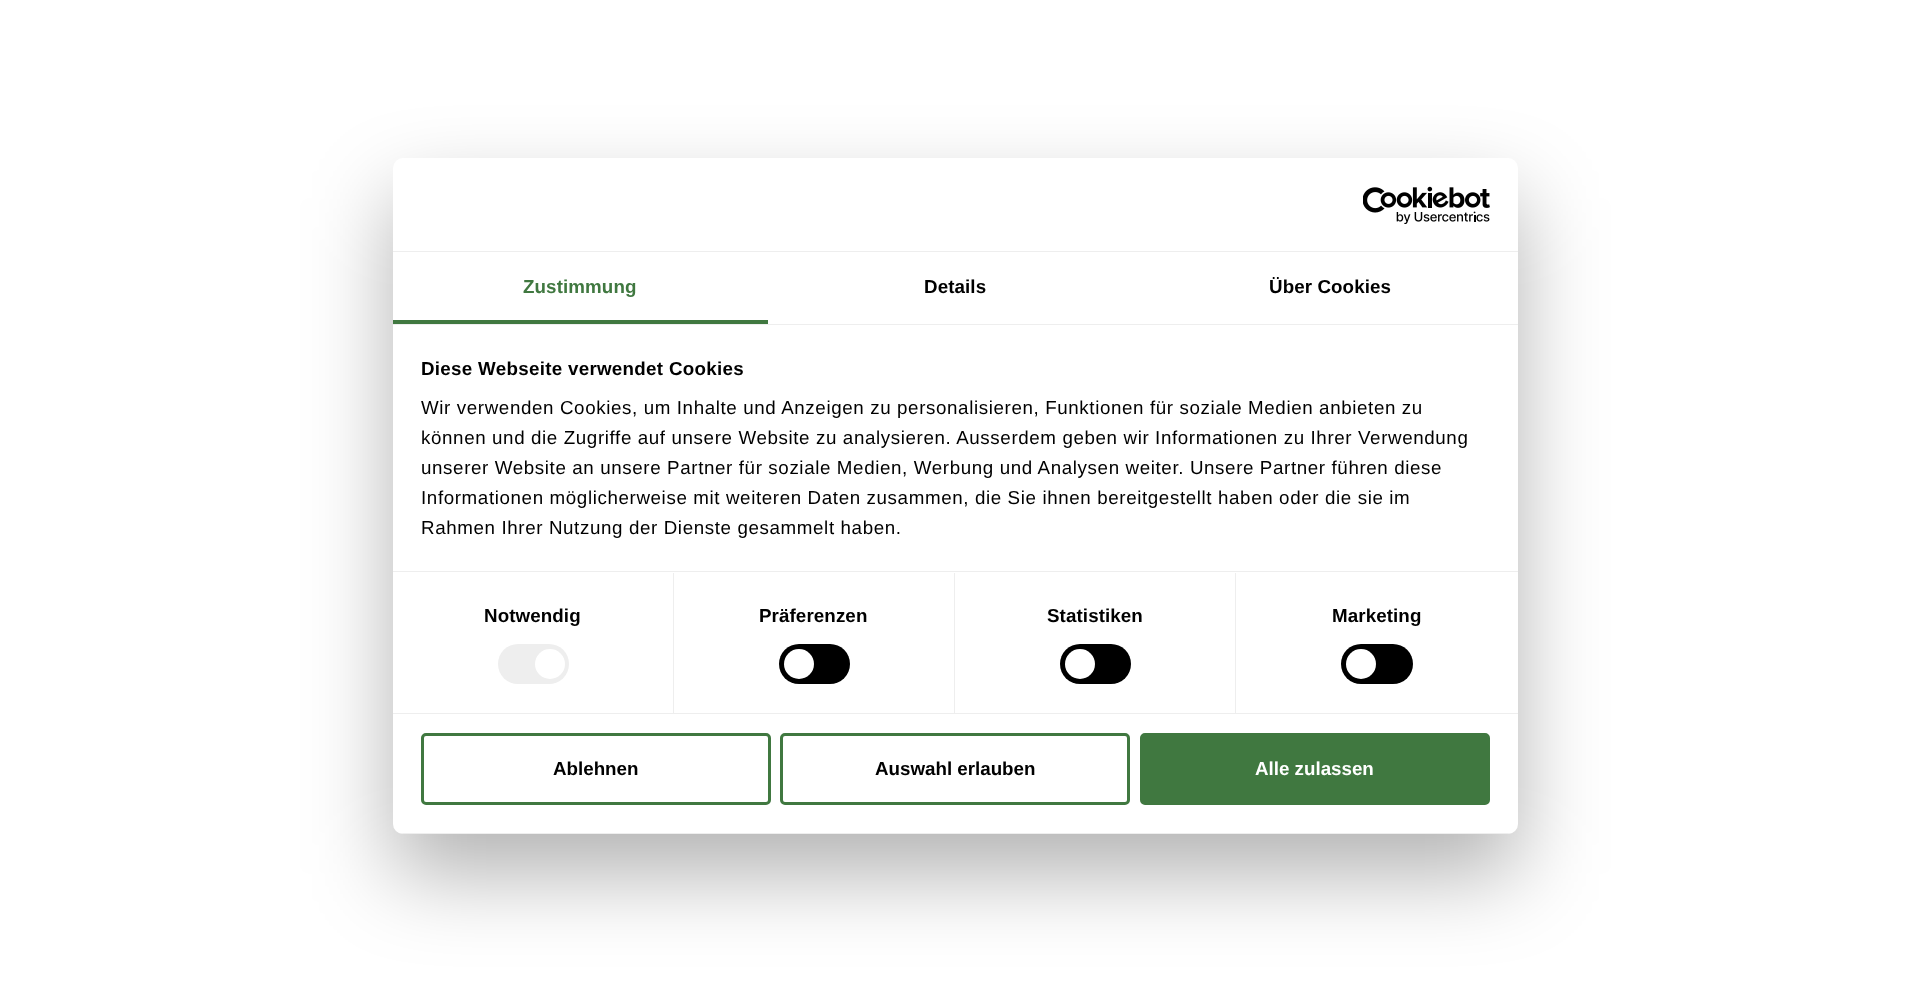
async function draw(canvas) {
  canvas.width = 1909;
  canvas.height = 992;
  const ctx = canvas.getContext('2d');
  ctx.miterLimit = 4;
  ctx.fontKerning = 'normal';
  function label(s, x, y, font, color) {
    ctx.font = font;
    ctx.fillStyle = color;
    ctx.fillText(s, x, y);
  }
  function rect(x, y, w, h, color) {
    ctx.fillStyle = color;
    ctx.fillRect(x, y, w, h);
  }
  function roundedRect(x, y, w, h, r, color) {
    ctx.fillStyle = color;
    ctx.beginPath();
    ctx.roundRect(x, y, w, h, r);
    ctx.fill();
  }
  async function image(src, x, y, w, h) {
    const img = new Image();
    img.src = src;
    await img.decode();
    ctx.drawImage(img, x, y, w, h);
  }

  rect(0, 0, 1909, 992, '#fff');
  ctx.fillStyle = '#0000004d';
  ctx.filter = 'blur(42.5px)';
  ctx.beginPath();
  ctx.roundRect(393, 198, 1125, 676, 10);
  ctx.fill();
  ctx.filter = 'none';
  roundedRect(393, 158, 1125, 676, 10, '#fff');
  rect(393, 251, 1125, 1, '#eee');
  await image('assets/img1.png', 1363, 186, 127, 38);
  rect(393, 324, 1125, 1, '#eee');
  rect(393, 320, 375, 4, '#407840');
  ctx.letterSpacing = '0.1px';
  label('Zustimmung', 523, 293, 'bold 18.75px Liberation Sans', '#407840');
  label('Details', 924, 293, 'bold 18.75px Liberation Sans', '#000');
  label('Über Cookies', 1269, 293, 'bold 18.75px Liberation Sans', '#000');
  rect(393, 571, 1125, 1, '#eee');
  ctx.letterSpacing = '0.3px';
  label('Diese Webseite verwendet Cookies', 421, 375, 'bold 18.75px Liberation Sans', '#000');
  ctx.letterSpacing = '0.62px';
  label('Wir verwenden Cookies, um Inhalte und Anzeigen zu personalisieren, Funktionen für soziale Medien anbieten zu', 421, 414, '18.75px Liberation Sans', '#000');
  label('können und die Zugriffe auf unsere Website zu analysieren. Ausserdem geben wir Informationen zu Ihrer Verwendung', 421, 444, '18.75px Liberation Sans', '#000');
  label('unserer Website an unsere Partner für soziale Medien, Werbung und Analysen weiter. Unsere Partner führen diese', 421, 474, '18.75px Liberation Sans', '#000');
  label('Informationen möglicherweise mit weiteren Daten zusammen, die Sie ihnen bereitgestellt haben oder die sie im', 421, 504, '18.75px Liberation Sans', '#000');
  label('Rahmen Ihrer Nutzung der Dienste gesammelt haben.', 421, 534, '18.75px Liberation Sans', '#000');
  rect(393, 713, 1125, 1, '#eee');
  rect(673, 573, 1, 140, '#eee');
  ctx.letterSpacing = '0.1px';
  label('Notwendig', 484, 622, 'bold 18.75px Liberation Sans', '#000');
  roundedRect(498, 644, 71, 40, 20, '#eee');
  ctx.fillStyle = '#fff';
  ctx.beginPath();
  ctx.arc(550, 664, 15, 0, 2 * Math.PI);
  ctx.fill();
  rect(954, 573, 1, 140, '#eee');
  label('Präferenzen', 759, 622, 'bold 18.75px Liberation Sans', '#000');
  roundedRect(779, 644, 71, 40, 20, '#000');
  ctx.fillStyle = '#fff';
  ctx.beginPath();
  ctx.arc(799, 664, 15, 0, 2 * Math.PI);
  ctx.fill();
  rect(1235, 573, 1, 140, '#eee');
  label('Statistiken', 1047, 622, 'bold 18.75px Liberation Sans', '#000');
  roundedRect(1060, 644, 71, 40, 20, '#000');
  ctx.fillStyle = '#fff';
  ctx.beginPath();
  ctx.arc(1080, 664, 15, 0, 2 * Math.PI);
  ctx.fill();
  label('Marketing', 1332, 622, 'bold 18.75px Liberation Sans', '#000');
  roundedRect(1341, 644, 72, 40, 20, '#000');
  ctx.fillStyle = '#fff';
  ctx.beginPath();
  ctx.arc(1361, 664, 15, 0, 2 * Math.PI);
  ctx.fill();
  ctx.save();
  ctx.beginPath();
  ctx.roundRect(393, 158, 1125, 676, 10);
  ctx.clip();
  rect(393, 833, 1125, 1, '#eee');
  ctx.restore();
  ctx.beginPath();
  ctx.roundRect(422.5, 734.5, 347, 69, 3.5);
  ctx.strokeStyle = '#407840';
  ctx.lineWidth = 3;
  ctx.stroke();
  ctx.letterSpacing = '0px';
  label('Ablehnen', 553, 775, 'bold 18.75px Liberation Sans', '#000');
  ctx.beginPath();
  ctx.roundRect(781.5, 734.5, 347, 69, 3.5);
  ctx.stroke();
  label('Auswahl erlauben', 875, 775, 'bold 18.75px Liberation Sans', '#000');
  ctx.fillStyle = '#407840';
  ctx.beginPath();
  ctx.roundRect(1141.5, 734.5, 347, 69, 3.5);
  ctx.fill();
  ctx.stroke();
  label('Alle zulassen', 1255, 775, 'bold 18.75px Liberation Sans', '#fff');
}

draw(document.querySelector('canvas'));
